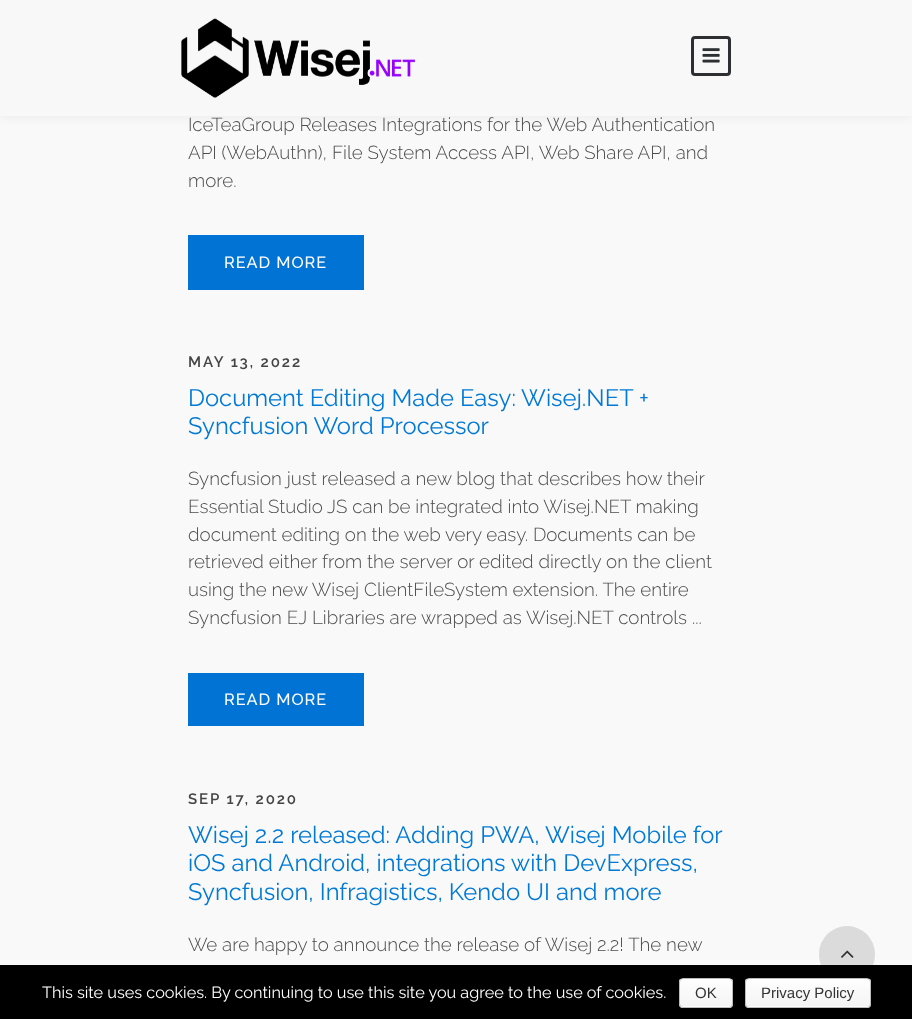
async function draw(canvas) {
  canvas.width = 912;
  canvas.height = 1019;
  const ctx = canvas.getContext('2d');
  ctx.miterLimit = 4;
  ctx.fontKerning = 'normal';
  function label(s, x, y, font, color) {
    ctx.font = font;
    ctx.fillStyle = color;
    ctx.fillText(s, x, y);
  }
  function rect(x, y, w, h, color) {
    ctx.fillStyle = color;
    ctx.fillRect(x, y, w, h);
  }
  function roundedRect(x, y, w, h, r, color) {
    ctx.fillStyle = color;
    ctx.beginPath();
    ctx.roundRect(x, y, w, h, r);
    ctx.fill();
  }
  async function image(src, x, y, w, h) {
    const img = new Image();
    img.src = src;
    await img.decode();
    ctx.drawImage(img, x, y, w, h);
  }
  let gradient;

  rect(0, 0, 912, 1019, '#f9f9f9');
  ctx.fillStyle = '#00000012';
  ctx.filter = 'blur(6px)';
  ctx.beginPath();
  ctx.rect(0, 0, 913, 116);
  ctx.fill();
  ctx.filter = 'none';
  rect(0, 0, 912, 116, '#f8f8f8');
  await image('assets/img1.png', 181, 18, 234, 80);
  ctx.beginPath();
  ctx.roundRect(692.5, 37.5, 37, 37, 2.5);
  ctx.strokeStyle = '#2d3033';
  ctx.lineWidth = 3;
  ctx.stroke();
  await image('assets/img2.png', 702, 48, 18, 15);
  label('IceTeaGroup Releases Integrations for the Web Authentication', 188, 131, '300 18.75px Raleway', '#4c4c4c');
  label('API (WebAuthn), File System Access API, Web Share API, and', 188, 159, '300 18.75px Raleway', '#4c4c4c');
  label('more.', 188, 187, '300 18.75px Raleway', '#4c4c4c');
  rect(188, 235, 176, 55, '#0073d5');
  ctx.letterSpacing = '1px';
  label('READ MORE', 224, 268, '500 16.25px Raleway', '#fff');
  ctx.letterSpacing = '1.9px';
  label('MAY 13, 2022', 188, 367, '600 15px Raleway', '#454545');
  ctx.letterSpacing = '0px';
  label('Document Editing Made Easy: Wisej.NET +', 188, 406, '23.75px Raleway', '#0179d5');
  label('Syncfusion Word Processor', 188, 434, '23.75px Raleway', '#0179d5');
  label('Syncfusion just released a new blog that describes how their', 188, 485, '300 18.75px Raleway', '#4c4c4c');
  label('Essential Studio JS can be integrated into Wisej.NET making', 188, 513, '300 18.75px Raleway', '#4c4c4c');
  label('document editing on the web very easy. Documents can be', 188, 541, '300 18.75px Raleway', '#4c4c4c');
  label('retrieved either from the server or edited directly on the client', 188, 568, '300 18.75px Raleway', '#4c4c4c');
  label('using the new Wisej ClientFileSystem extension. The entire', 188, 596, '300 18.75px Raleway', '#4c4c4c');
  label('Syncfusion EJ Libraries are wrapped as Wisej.NET controls ...', 188, 624, '300 18.75px Raleway', '#4c4c4c');
  rect(188, 673, 176, 53, '#0073d5');
  ctx.letterSpacing = '1px';
  label('READ MORE', 224, 705, '500 16.25px Raleway', '#fff');
  ctx.letterSpacing = '1.9px';
  label('SEP 17, 2020', 188, 804, '600 15px Raleway', '#454545');
  ctx.letterSpacing = '0px';
  label('Wisej 2.2 released: Adding PWA, Wisej Mobile for', 188, 843, '23.75px Raleway', '#0179d5');
  label('iOS and Android, integrations with DevExpress,', 188, 871, '23.75px Raleway', '#0179d5');
  label('Syncfusion, Infragistics, Kendo UI and more', 188, 900, '23.75px Raleway', '#0179d5');
  label('We are happy to announce the release of Wisej 2.2! The new', 188, 951, '300 18.75px Raleway', '#4c4c4c');
  roundedRect(819, 926, 56, 57, 28, '#dbdbdb');
  await image('assets/img3.png', 841, 950, 13, 8);
  rect(0, 965, 912, 54, '#000');
  label('This site uses cookies. By continuing to use this site you agree to the use of cookies.', 42, 998, '16.25px Raleway', '#fff');
  ctx.save();
  ctx.beginPath();
  ctx.roundRect(679, 978, 54, 30, 4);
  ctx.clip();
  gradient = ctx.createLinearGradient(706, 979, 706, 1006);
  gradient.addColorStop(0, '#fefefe');
  gradient.addColorStop(1, '#f4f4f4');
  ctx.fillStyle = gradient;
  ctx.fillRect(679, 979, 54, 27);
  gradient = ctx.createLinearGradient(706, 1006, 706, 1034);
  gradient.addColorStop(0, '#fefefe');
  gradient.addColorStop(1, '#f4f4f4');
  ctx.fillStyle = gradient;
  ctx.fillRect(679, 1006, 54, 2);
  ctx.restore();
  ctx.beginPath();
  ctx.roundRect(679.5, 978.5, 53, 29, 3.5);
  ctx.strokeStyle = '#bbb';
  ctx.lineWidth = 1;
  ctx.stroke();
  label('OK', 695, 998, '15px Liberation Sans', '#333');
  ctx.save();
  ctx.beginPath();
  ctx.roundRect(745, 978, 126, 30, 4);
  ctx.clip();
  gradient = ctx.createLinearGradient(808, 979, 808, 1006);
  gradient.addColorStop(0, '#fefefe');
  gradient.addColorStop(1, '#f4f4f4');
  ctx.fillStyle = gradient;
  ctx.fillRect(745, 979, 126, 27);
  gradient = ctx.createLinearGradient(808, 1006, 808, 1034);
  gradient.addColorStop(0, '#fefefe');
  gradient.addColorStop(1, '#f4f4f4');
  ctx.fillStyle = gradient;
  ctx.fillRect(745, 1006, 126, 2);
  ctx.restore();
  ctx.beginPath();
  ctx.roundRect(745.5, 978.5, 125, 29, 3.5);
  ctx.stroke();
  label('Privacy Policy', 761, 998, '15px Liberation Sans', '#333');
}

draw(document.querySelector('canvas'));
